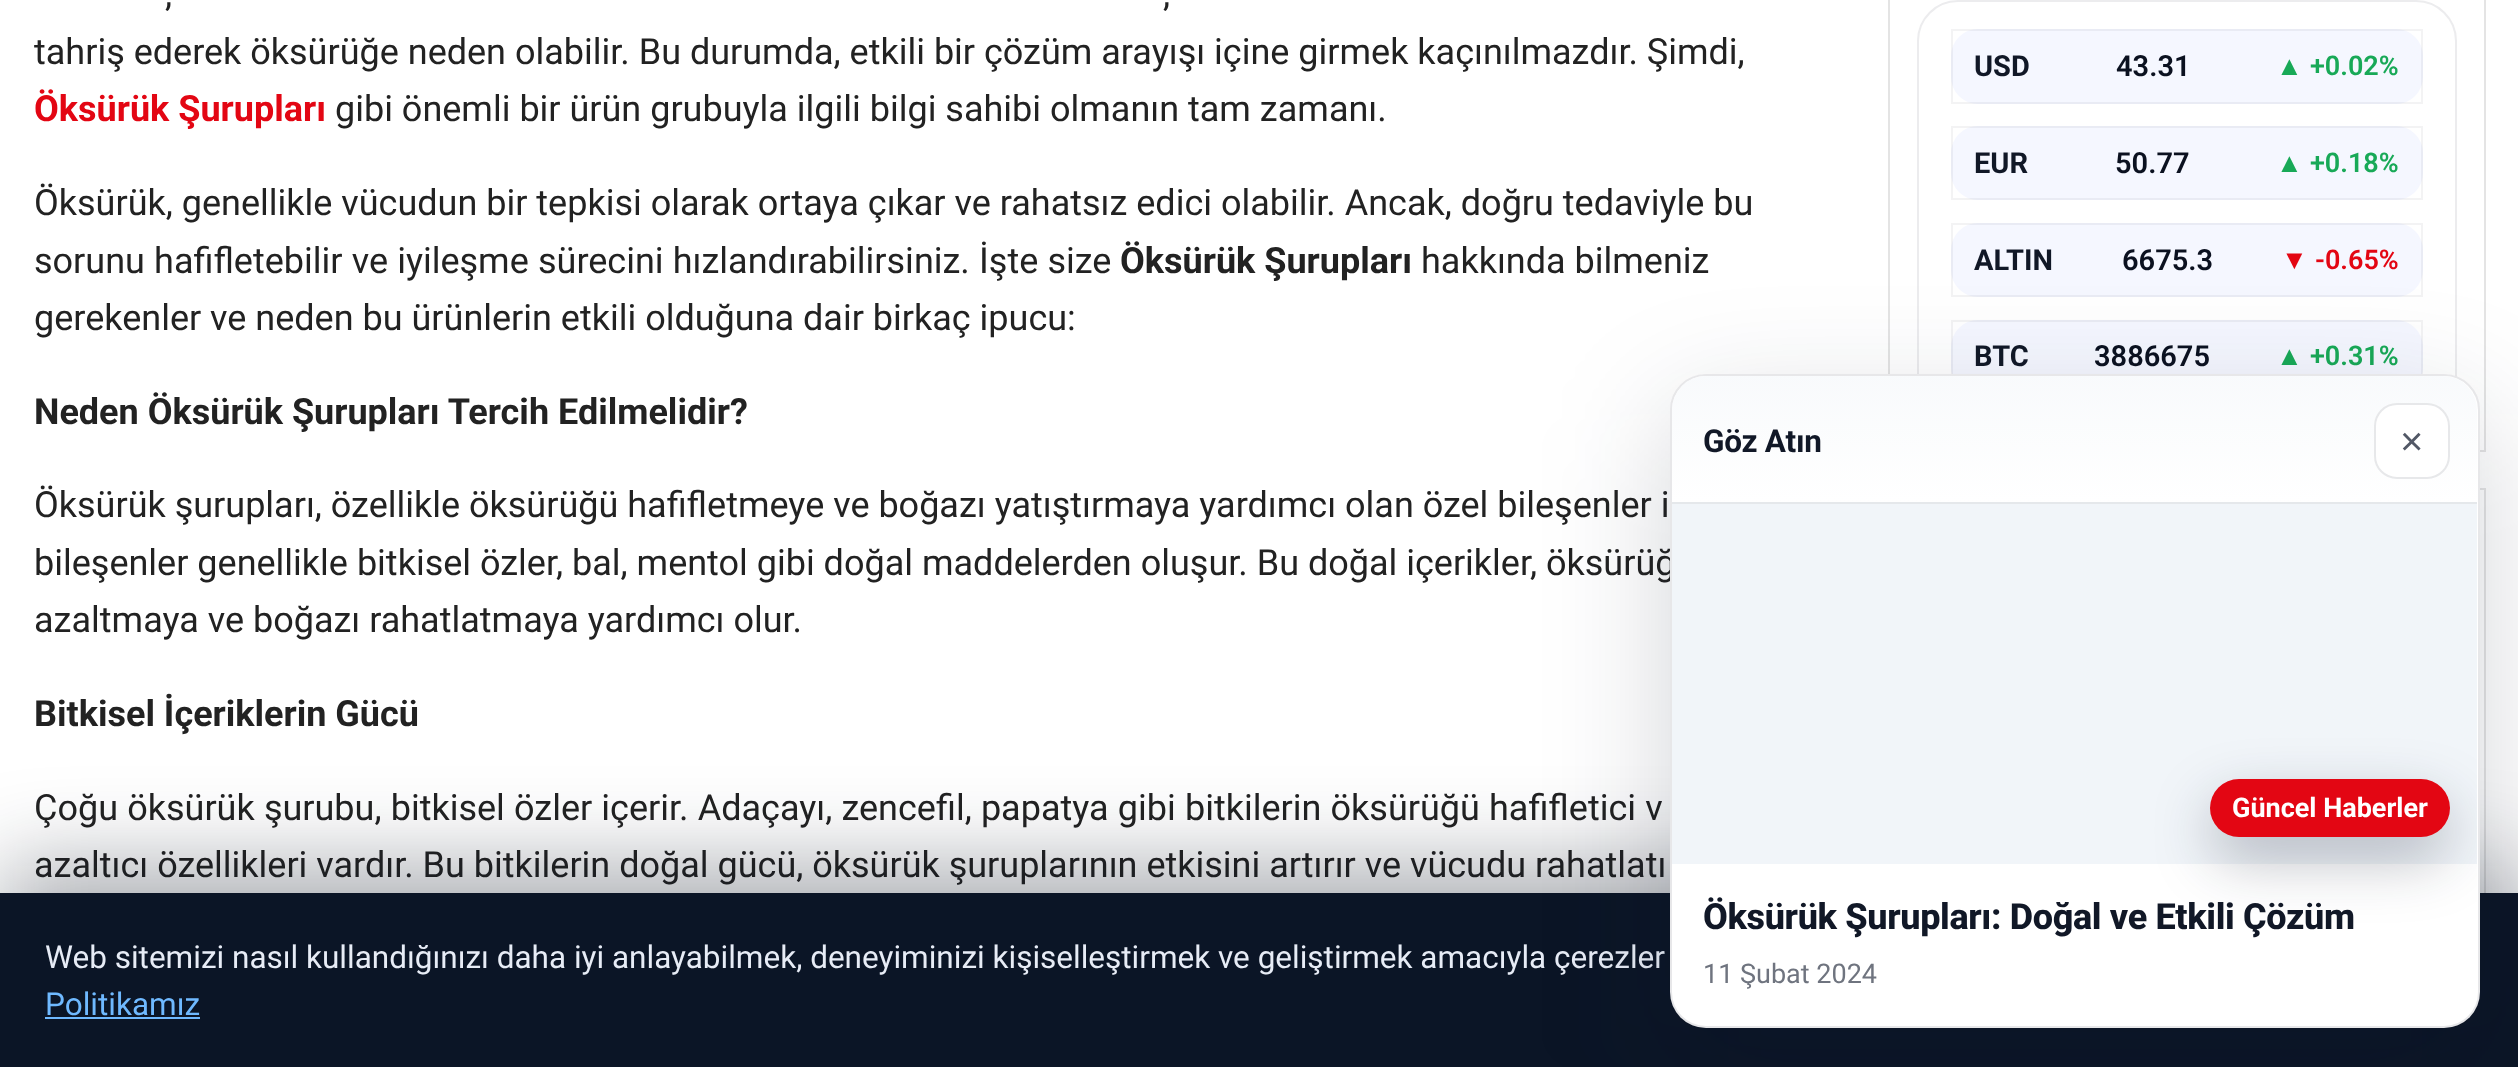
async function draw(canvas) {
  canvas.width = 2518;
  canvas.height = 1067;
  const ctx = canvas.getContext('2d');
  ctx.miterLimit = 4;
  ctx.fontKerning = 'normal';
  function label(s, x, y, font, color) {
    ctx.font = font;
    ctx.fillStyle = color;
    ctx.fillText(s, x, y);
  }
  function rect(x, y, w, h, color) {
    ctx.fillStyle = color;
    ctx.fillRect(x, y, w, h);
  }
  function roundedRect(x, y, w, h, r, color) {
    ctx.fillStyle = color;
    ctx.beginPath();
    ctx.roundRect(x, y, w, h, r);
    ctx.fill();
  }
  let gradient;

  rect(0, 0, 2518, 1067, '#fff');
  label(',', 165, 6, '36px Roboto', '#222');
  label(',', 1163, 6, '36px Roboto', '#222');
  label('tahriş ederek öksürüğe neden olabilir. Bu durumda, etkili bir çözüm arayışı içine girmek kaçınılmazdır. Şimdi,', 34, 64, '36px Roboto', '#222');
  label('Öksürük Şurupları', 34, 121, 'bold 36px Roboto', '#e30613');
  label('gibi önemli bir ürün grubuyla ilgili bilgi sahibi olmanın tam zamanı.', 335, 121, '36px Roboto', '#222');
  label('Öksürük, genellikle vücudun bir tepkisi olarak ortaya çıkar ve rahatsız edici olabilir. Ancak, doğru tedaviyle bu', 34, 215, '36px Roboto', '#222');
  ctx.wordSpacing = '0.25px';
  label('sorunu hafifletebilir ve iyileşme sürecini hızlandırabilirsiniz. İşte size', 34, 273, '36px Roboto', '#222');
  ctx.wordSpacing = '0px';
  label('Öksürük Şurupları', 1120, 273, 'bold 36px Roboto', '#222');
  label('hakkında bilmeniz', 1421, 273, '36px Roboto', '#222');
  label('gerekenler ve neden bu ürünlerin etkili olduğuna dair birkaç ipucu:', 34, 330, '36px Roboto', '#222');
  label('Neden Öksürük Şurupları Tercih Edilmelidir?', 34, 424, 'bold 36px Roboto', '#222');
  label('Öksürük şurupları, özellikle öksürüğü hafifletmeye ve boğazı yatıştırmaya yardımcı olan özel bileşenler i', 34, 517, '36px Roboto', '#222');
  label('bileşenler genellikle bitkisel özler, bal, mentol gibi doğal maddelerden oluşur. Bu doğal içerikler, öksürüğ', 34, 575, '36px Roboto', '#222');
  label('azaltmaya ve boğazı rahatlatmaya yardımcı olur.', 34, 632, '36px Roboto', '#222');
  label('Bitkisel İçeriklerin Gücü', 34, 726, 'bold 36px Roboto', '#222');
  ctx.wordSpacing = '0.25px';
  label('Çoğu öksürük şurubu, bitkisel özler içerir. Adaçayı, zencefil, papatya gibi bitkilerin öksürüğü hafifletici v', 34, 820, '36px Roboto', '#222');
  ctx.wordSpacing = '0px';
  label('azaltıcı özellikleri vardır. Bu bitkilerin doğal gücü, öksürük şuruplarının etkisini artırır ve vücudu rahatlatı', 34, 877, '36px Roboto', '#222');
  ctx.strokeStyle = '#e4e4e4';
  ctx.lineWidth = 2;
  ctx.strokeRect(1889, -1, 596, 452);
  ctx.beginPath();
  ctx.roundRect(1918, 1, 538, 421, 40);
  ctx.strokeStyle = '#ececee';
  ctx.stroke();
  roundedRect(1951, 29, 472, 75, 27, '#f5f7ff');
  ctx.strokeStyle = '#0f172a0d';
  ctx.strokeRect(1952, 30, 470, 73);
  label('USD', 1974, 76, 'bold 29px Roboto', '#111827');
  label('43.31', 2116, 76, '600 29px Roboto', '#0b1120');
  label('▲', 2276, 75, 'bold 27px Liberation Sans', '#18a957');
  label('+0.02%', 2310, 75, '600 27px Roboto', '#18a957');
  roundedRect(1951, 126, 472, 74, 27, '#f5f7ff');
  ctx.strokeRect(1952, 127, 470, 72);
  label('EUR', 1974, 173, 'bold 29px Roboto', '#111827');
  label('50.77', 2115, 173, '600 29px Roboto', '#0b1120');
  label('▲', 2276, 172, 'bold 27px Liberation Sans', '#18a957');
  label('+0.18%', 2310, 172, '600 27px Roboto', '#18a957');
  roundedRect(1951, 223, 472, 74, 27, '#f5f7ff');
  ctx.strokeRect(1952, 224, 470, 72);
  label('ALTIN', 1974, 270, 'bold 29px Roboto', '#111827');
  label('6675.3', 2122, 270, '600 29px Roboto', '#0b1120');
  label('▼', 2281, 269, 'bold 27px Liberation Sans', '#e30613');
  label('-0.65%', 2315, 269, '600 27px Roboto', '#e30613');
  roundedRect(1951, 320, 472, 74, 27, '#f5f7ff');
  ctx.strokeRect(1952, 321, 470, 72);
  label('BTC', 1974, 366, 'bold 29px Roboto', '#111827');
  label('3886675', 2094, 366, '600 29px Roboto', '#0b1120');
  label('▲', 2276, 365, 'bold 27px Liberation Sans', '#18a957');
  label('+0.31%', 2310, 365, '600 27px Roboto', '#18a957');
  ctx.strokeStyle = '#e4e4e4';
  ctx.strokeRect(1889, 489, 596, 572);
  ctx.fillStyle = '#0c152259';
  ctx.filter = 'blur(45px)';
  ctx.beginPath();
  ctx.rect(0, 866, 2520, 176);
  ctx.fill();
  ctx.filter = 'none';
  rect(0, 893, 2518, 174, '#0b1526');
  label('Web sitemizi nasıl kullandığınızı daha iyi anlayabilmek, deneyiminizi kişiselleştirmek ve geliştirmek amacıyla çerezler', 45, 968, '31.5px Roboto', '#e7ecf6');
  label('Politikamız', 45, 1015, '31.5px Roboto', '#6fb9ff');
  rect(45, 1017, 155, 2, '#6fb9ff');
  ctx.fillStyle = '#0f172a2e';
  ctx.filter = 'blur(62px)';
  ctx.beginPath();
  ctx.roundRect(1670, 414, 810, 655, 36);
  ctx.fill();
  ctx.filter = 'none';
  roundedRect(1670, 374, 810, 654, 36, '#fff');
  ctx.beginPath();
  ctx.roundRect(1671, 375, 808, 652, 35);
  ctx.strokeStyle = '#0f172a1a';
  ctx.stroke();
  gradient = ctx.createLinearGradient(2075, 376, 2075, 502);
  gradient.addColorStop(0, '#f8fafcf2');
  gradient.addColorStop(1, '#fffffff2');
  ctx.fillStyle = gradient;
  ctx.beginPath();
  ctx.roundRect(1672, 376, 805, 126, [34, 34, 0, 0]);
  ctx.fill();
  rect(1672, 502, 805, 2, '#e5e8eb');
  ctx.letterSpacing = '-0.25px';
  label('Göz Atın', 1703, 452, 'bold 31.5px Roboto', '#111827');
  ctx.fillStyle = '#fff';
  ctx.beginPath();
  ctx.roundRect(2375, 404, 74, 74, 22);
  ctx.fill();
  ctx.strokeStyle = '#e7e8ea';
  ctx.stroke();
  ctx.letterSpacing = '0px';
  label('×', 2400, 455, '40px Liberation Sans', '#525866');
  rect(1672, 504, 805, 360, '#f1f5f9');
  ctx.save();
  ctx.beginPath();
  ctx.roundRect(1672, 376, 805, 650, 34);
  ctx.clip();
  ctx.fillStyle = '#0f172a47';
  ctx.filter = 'blur(29px)';
  ctx.beginPath();
  ctx.roundRect(2210, 801, 240, 59, 29.5);
  ctx.fill();
  ctx.filter = 'none';
  ctx.restore();
  roundedRect(2210, 779, 240, 58, 29, '#e30613');
  label('Güncel Haberler', 2232, 817, 'bold 27px Roboto', '#fff');
  ctx.letterSpacing = '-0.35px';
  label('Öksürük Şurupları: Doğal ve Etkili Çözüm', 1703, 929, '800 36px Roboto', '#111827');
  ctx.letterSpacing = '0px';
  label('11 Şubat 2024', 1703, 983, '27px Roboto', '#6f747f');
}

draw(document.querySelector('canvas'));
